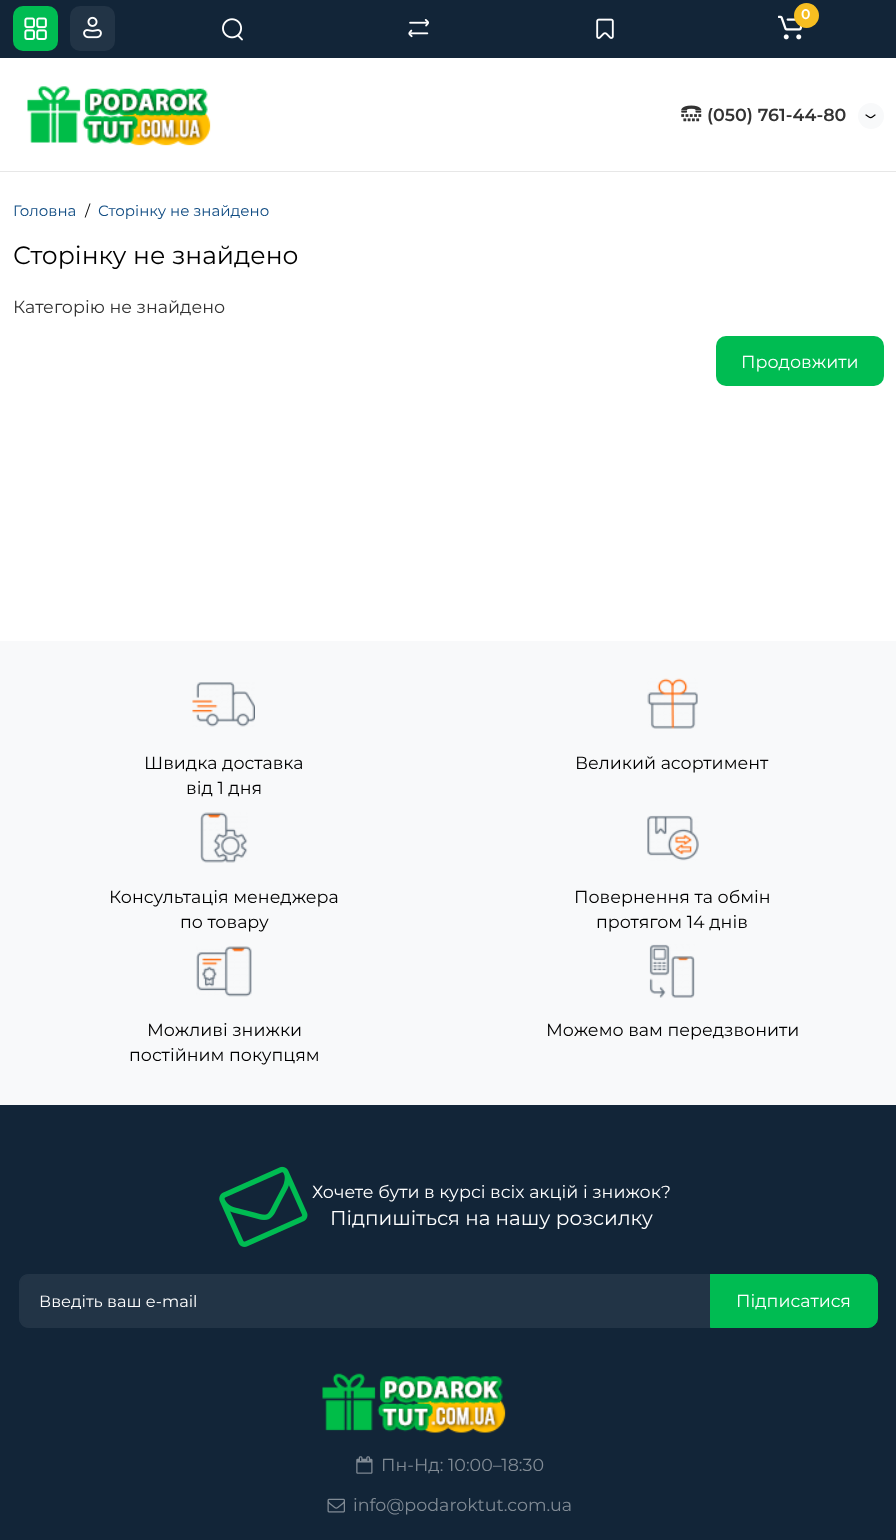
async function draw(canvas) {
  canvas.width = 896;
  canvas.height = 1540;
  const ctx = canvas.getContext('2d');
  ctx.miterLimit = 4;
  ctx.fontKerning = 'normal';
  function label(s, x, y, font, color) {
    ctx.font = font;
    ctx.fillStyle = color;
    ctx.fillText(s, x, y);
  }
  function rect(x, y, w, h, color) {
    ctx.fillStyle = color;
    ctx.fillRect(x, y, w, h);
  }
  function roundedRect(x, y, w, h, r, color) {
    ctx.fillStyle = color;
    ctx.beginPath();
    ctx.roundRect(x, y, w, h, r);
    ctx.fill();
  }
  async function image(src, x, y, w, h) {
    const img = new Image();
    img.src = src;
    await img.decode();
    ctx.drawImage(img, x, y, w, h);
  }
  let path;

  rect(0, 0, 896, 1540, '#fff');
  rect(0, 0, 896, 58, '#122538');
  roundedRect(13, 6, 45, 45, 10, '#00bc52');
  await image('assets/img1.png', 24, 17, 23, 23);
  roundedRect(70, 6, 45, 45, 10, '#223446');
  await image('assets/img2.png', 83, 16, 19, 23);
  await image('assets/img3.png', 778, 15, 25, 25);
  ctx.fillStyle = '#f6be21';
  ctx.beginPath();
  ctx.arc(806.5, 15.5, 12.5, 0, 2 * Math.PI);
  ctx.fill();
  label('0', 801, 19, '600 14px Montserrat', '#fff');
  await image('assets/img4.png', 222, 18, 21, 23);
  await image('assets/img5.png', 408, 19, 21, 19);
  await image('assets/img6.png', 596, 18, 18, 21);
  rect(0, 171, 896, 1, '#e7e7e7');
  await image('assets/img7.png', 27, 86, 184, 60);
  await image('assets/img8.png', 681, 105, 21, 17);
  label('(050) 761-44-80', 707, 121, '600 17.5px Montserrat', '#333');
  ctx.fillStyle = '#f8f9fa';
  ctx.beginPath();
  ctx.arc(871, 116, 13, 0, 2 * Math.PI);
  ctx.fill();
  path = new Path2D('M875 115C870 118.5 871.5 118.5 866 115');
  ctx.strokeStyle = '#000';
  ctx.lineWidth = 1.2;
  ctx.lineCap = 'round';
  ctx.stroke(path);
  label('Головна', 13, 216, '15px Montserrat', '#0f4b82');
  label('/', 85, 216, '15px Montserrat', '#000');
  label('Сторінку не знайдено', 98, 216, '15px Montserrat', '#0f4b82');
  label('Сторінку не знайдено', 13, 264, '25px Montserrat', '#000');
  label('Категорію не знайдено', 13, 313, '17.5px Montserrat', '#333');
  roundedRect(716, 336, 168, 50, 10, '#00bc52');
  label('Продовжити', 741, 368, '17.5px Montserrat', '#fff');
  rect(0, 641, 896, 464, '#f8f9fa');
  await image('assets/img9.png', 192, 682, 63, 45);
  label('Швидка доставка', 144, 769, '17.5px Montserrat', '#000');
  label('від 1 дня', 186, 794, '17.5px Montserrat', '#000');
  await image('assets/img10.png', 647, 678, 51, 51);
  label('Великий асортимент', 575, 769, '17.5px Montserrat', '#000');
  await image('assets/img11.png', 200, 812, 48, 51);
  label('Консультація менеджера', 109, 903, '17.5px Montserrat', '#000');
  label('по товару', 180, 928, '17.5px Montserrat', '#000');
  await image('assets/img12.png', 647, 815, 52, 46);
  label('Повернення та обмін', 574, 903, '17.5px Montserrat', '#000');
  label('протягом 14 днів', 596, 928, '17.5px Montserrat', '#000');
  await image('assets/img13.png', 196, 946, 56, 51);
  label('Можливі знижки', 147, 1036, '17.5px Montserrat', '#000');
  label('постійним покупцям', 129, 1061, '17.5px Montserrat', '#000');
  await image('assets/img14.png', 649, 944, 46, 54);
  label('Можемо вам передзвонити', 546, 1036, '17.5px Montserrat', '#000');
  rect(0, 1105, 896, 435, '#122538');
  await image('assets/img15.png', 219, 1166, 89, 81);
  label('Хочете бути в курсі всіх акцій і знижок?', 312, 1198, '17.5px Montserrat', '#fff');
  label('Підпишіться на нашу розсилку', 330, 1225, '20px Montserrat', '#fff');
  ctx.fillStyle = '#223446';
  ctx.beginPath();
  ctx.roundRect(19, 1274, 692, 54, [10, 0, 0, 10]);
  ctx.fill();
  path = new Path2D('M29 1274H711V1328H29C23 1328 19 1323 19 1318V1284C19 1278 23 1274 29 1274ZM29 1275H711V1326H29C24 1326 20 1322 20 1318V1284C20 1279 24 1275 29 1275Z');
  ctx.fill(path, 'evenodd');
  label('Введіть ваш e-mail', 39, 1307, '16.25px Montserrat', '#fff');
  ctx.fillStyle = '#00bc52';
  ctx.beginPath();
  ctx.roundRect(710.5, 1274.5, 167, 53, [0, 9.5, 9.5, 0]);
  ctx.fill();
  ctx.strokeStyle = '#00bc52';
  ctx.lineWidth = 1;
  ctx.stroke();
  label('Підписатися', 736, 1307, '17.5px Montserrat', '#fff');
  await image('assets/img16.png', 322, 1373, 184, 60);
  await image('assets/img17.png', 356, 1456, 17, 18);
  label('Пн-Нд: 10:00–18:30', 381, 1471, '17.5px Montserrat', '#818b95');
  await image('assets/img18.png', 327, 1498, 18, 15);
  label('info@podaroktut.com.ua', 353, 1511, '17.5px Montserrat', '#818b95');
}

draw(document.querySelector('canvas'));
